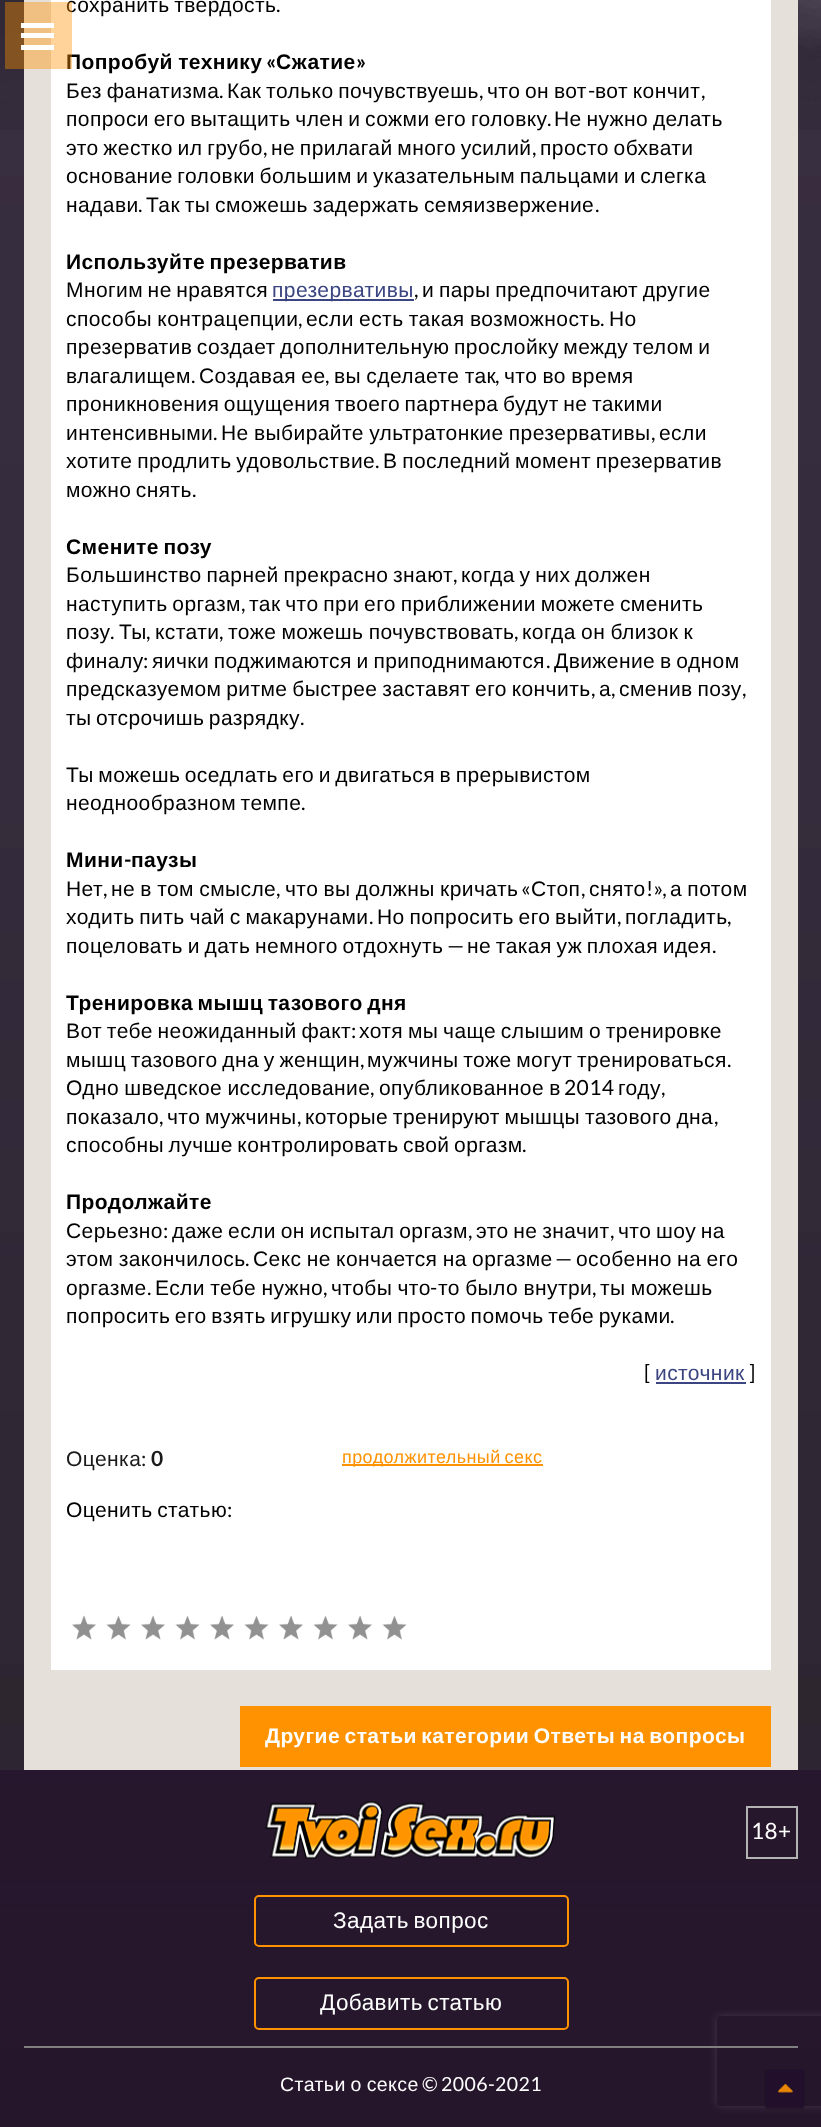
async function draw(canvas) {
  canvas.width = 821;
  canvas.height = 2127;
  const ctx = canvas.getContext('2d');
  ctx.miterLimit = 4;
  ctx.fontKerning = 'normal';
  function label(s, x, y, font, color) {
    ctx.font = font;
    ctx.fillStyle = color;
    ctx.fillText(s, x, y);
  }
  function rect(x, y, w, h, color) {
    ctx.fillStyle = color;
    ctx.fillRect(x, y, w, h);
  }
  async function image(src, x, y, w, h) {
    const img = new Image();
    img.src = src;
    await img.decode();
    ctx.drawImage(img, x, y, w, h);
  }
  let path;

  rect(0, 0, 821, 2127, '#fff');
  await image('assets/img1.png', 0, 0, 821, 2127);
  await image('assets/img2.png', 0, 0, 821, 130);
  rect(24, 0, 774, 1770, '#e6e0da');
  rect(51, 0, 720, 1670, '#fff');
  ctx.letterSpacing = '0.42px';
  ctx.wordSpacing = '-1.75px';
  label('сохранить твердость', 66, 12, '21px Liberation Sans', '#000');
  ctx.wordSpacing = '-1px';
  label('Попробуй технику', 66, 69, 'bold 21px Liberation Sans', '#000');
  rect(5, 2, 67, 67, '#ff920066');
  rect(21, 33, 33, 5, '#fff');
  rect(21, 23, 33, 5, '#fff');
  rect(21, 45, 33, 5, '#fff');
  ctx.wordSpacing = '0px';
  label('.', 276, 12, '21px Lato', '#000');
  label('«', 266, 69, 'bold 21px Lato', '#000');
  label('Сжатие', 276, 69, 'bold 21px Liberation Sans', '#000');
  label('»', 356, 69, 'bold 21px Lato', '#000');
  ctx.wordSpacing = '-1.5px';
  label('Без фанатизма', 66, 98, '21px Liberation Sans', '#000');
  label('Как только почувствуешь', 227, 98, '21px Liberation Sans', '#000');
  label('что он вот', 487, 98, '21px Liberation Sans', '#000');
  ctx.wordSpacing = '0px';
  label('-', 588, 98, '21px Lato', '#000');
  ctx.wordSpacing = '-1.5px';
  label('вот кончит', 595, 98, '21px Liberation Sans', '#000');
  ctx.wordSpacing = '0px';
  label('.', 219, 98, '21px Lato', '#000');
  label(',', 479, 98, '21px Lato', '#000');
  label(',', 701, 98, '21px Lato', '#000');
  ctx.wordSpacing = '-1.5px';
  label('попроси его вытащить член и сожми его головку', 66, 126, '21px Liberation Sans', '#000');
  ctx.wordSpacing = '0px';
  label('.', 547, 126, '21px Lato', '#000');
  ctx.wordSpacing = '-1.5px';
  label('Не нужно делать', 554, 126, '21px Liberation Sans', '#000');
  label('это жестко ил грубо', 66, 155, '21px Liberation Sans', '#000');
  ctx.wordSpacing = '0px';
  label(',', 263, 155, '21px Lato', '#000');
  ctx.wordSpacing = '-1.5px';
  label('не прилагай много усилий', 271, 155, '21px Liberation Sans', '#000');
  ctx.wordSpacing = '0px';
  label(',', 532, 155, '21px Lato', '#000');
  ctx.wordSpacing = '-1.5px';
  label('просто обхвати', 540, 155, '21px Liberation Sans', '#000');
  ctx.wordSpacing = '-1.75px';
  label('основание головки большим и указательным пальцами и слегка', 66, 183, '21px Liberation Sans', '#000');
  ctx.wordSpacing = '0px';
  label('надави', 66, 212, '21px Liberation Sans', '#000');
  label('.', 138, 212, '21px Lato', '#000');
  ctx.wordSpacing = '-1.5px';
  label('Так ты сможешь задержать семяизвержение', 146, 212, '21px Liberation Sans', '#000');
  ctx.wordSpacing = '0px';
  label('.', 595, 212, '21px Lato', '#000');
  ctx.wordSpacing = '-1.75px';
  label('Используйте презерватив', 66, 269, 'bold 21px Liberation Sans', '#000');
  label('Многим не нравятся', 66, 297, '21px Liberation Sans', '#000');
  rect(273, 299, 141, 2, '#3a4581');
  ctx.wordSpacing = '0px';
  label('презервативы', 272, 297, '21px Liberation Sans', '#3a4581');
  label(',', 414, 297, '21px Lato', '#000');
  ctx.wordSpacing = '-1.5px';
  label('и пары предпочитают другие', 422, 297, '21px Liberation Sans', '#000');
  ctx.wordSpacing = '-1px';
  label('способы контрацепции', 66, 326, '21px Liberation Sans', '#000');
  ctx.wordSpacing = '0px';
  label(',', 298, 326, '21px Lato', '#000');
  ctx.wordSpacing = '-1px';
  label('если есть такая возможность', 306, 326, '21px Liberation Sans', '#000');
  ctx.wordSpacing = '0px';
  label('.', 600, 326, '21px Lato', '#000');
  label('Но', 609, 326, '21px Liberation Sans', '#000');
  ctx.wordSpacing = '-1.75px';
  label('презерватив создает дополнительную прослойку между телом и', 66, 354, '21px Liberation Sans', '#000');
  ctx.wordSpacing = '0px';
  label('влагалищем', 66, 383, '21px Liberation Sans', '#000');
  label('.', 191, 383, '21px Lato', '#000');
  ctx.wordSpacing = '-1px';
  label('Создавая ее', 199, 383, '21px Liberation Sans', '#000');
  ctx.wordSpacing = '0px';
  label(',', 325, 383, '21px Lato', '#000');
  ctx.wordSpacing = '-1px';
  label('вы сделаете так', 334, 383, '21px Liberation Sans', '#000');
  ctx.wordSpacing = '0px';
  label(',', 495, 383, '21px Lato', '#000');
  ctx.wordSpacing = '-1px';
  label('что во время', 504, 383, '21px Liberation Sans', '#000');
  ctx.wordSpacing = '-1.75px';
  label('проникновения ощущения твоего партнера будут не такими', 66, 411, '21px Liberation Sans', '#000');
  ctx.wordSpacing = '0px';
  label('интенсивными', 66, 440, '21px Liberation Sans', '#000');
  label('.', 213, 440, '21px Lato', '#000');
  ctx.wordSpacing = '-1px';
  label('Не выбирайте ультратонкие презервативы', 221, 440, '21px Liberation Sans', '#000');
  ctx.wordSpacing = '0px';
  label(',', 651, 440, '21px Lato', '#000');
  label('если', 659, 440, '21px Liberation Sans', '#000');
  ctx.wordSpacing = '-1.5px';
  label('хотите продлить удовольствие', 66, 468, '21px Liberation Sans', '#000');
  ctx.wordSpacing = '0px';
  label('.', 375, 468, '21px Lato', '#000');
  ctx.wordSpacing = '-1.5px';
  label('В последний момент презерватив', 383, 468, '21px Liberation Sans', '#000');
  ctx.wordSpacing = '-1.75px';
  label('можно снять', 66, 497, '21px Liberation Sans', '#000');
  ctx.wordSpacing = '0px';
  label('.', 192, 497, '21px Lato', '#000');
  ctx.wordSpacing = '-1.75px';
  label('Смените позу', 66, 554, 'bold 21px Liberation Sans', '#000');
  ctx.wordSpacing = '-1.5px';
  label('Большинство парней прекрасно знают', 66, 582, '21px Liberation Sans', '#000');
  ctx.wordSpacing = '0px';
  label(',', 453, 582, '21px Lato', '#000');
  ctx.wordSpacing = '-1.5px';
  label('когда у них должен', 461, 582, '21px Liberation Sans', '#000');
  label('наступить оргазм', 66, 611, '21px Liberation Sans', '#000');
  ctx.wordSpacing = '0px';
  label(',', 241, 611, '21px Lato', '#000');
  ctx.wordSpacing = '-1.5px';
  label('так что при его приближении можете сменить', 249, 611, '21px Liberation Sans', '#000');
  ctx.wordSpacing = '0px';
  label('позу', 66, 639, '21px Liberation Sans', '#000');
  label('.', 110, 639, '21px Lato', '#000');
  label('Ты', 119, 639, '21px Liberation Sans', '#000');
  label(',', 146, 639, '21px Lato', '#000');
  label('кстати', 155, 639, '21px Liberation Sans', '#000');
  label(',', 219, 639, '21px Lato', '#000');
  ctx.wordSpacing = '-1px';
  label('тоже можешь почувствовать', 228, 639, '21px Liberation Sans', '#000');
  ctx.wordSpacing = '0px';
  label(',', 514, 639, '21px Lato', '#000');
  ctx.wordSpacing = '-1px';
  label('когда он близок к', 522, 639, '21px Liberation Sans', '#000');
  ctx.wordSpacing = '0px';
  label('финалу', 66, 668, '21px Liberation Sans', '#000');
  label(':', 143, 668, '21px Lato', '#000');
  ctx.wordSpacing = '-1.5px';
  label('яички поджимаются и приподнимаются', 152, 668, '21px Liberation Sans', '#000');
  ctx.wordSpacing = '0px';
  label('.', 546, 668, '21px Lato', '#000');
  ctx.wordSpacing = '-1.5px';
  label('Движение в одном', 554, 668, '21px Liberation Sans', '#000');
  label('предсказуемом ритме быстрее заставят его кончить', 66, 696, '21px Liberation Sans', '#000');
  ctx.wordSpacing = '0px';
  label(',', 591, 696, '21px Lato', '#000');
  label('а', 599, 696, '21px Liberation Sans', '#000');
  label(',', 611, 696, '21px Lato', '#000');
  ctx.wordSpacing = '-1.5px';
  label('сменив позу', 619, 696, '21px Liberation Sans', '#000');
  ctx.wordSpacing = '0px';
  label(',', 742, 696, '21px Lato', '#000');
  ctx.wordSpacing = '-1.75px';
  label('ты отсрочишь разрядку', 66, 725, '21px Liberation Sans', '#000');
  ctx.wordSpacing = '0px';
  label('.', 300, 725, '21px Lato', '#000');
  ctx.wordSpacing = '-1.75px';
  label('Ты можешь оседлать его и двигаться в прерывистом', 66, 782, '21px Liberation Sans', '#000');
  label('неоднообразном темпе', 66, 810, '21px Liberation Sans', '#000');
  ctx.wordSpacing = '0px';
  label('.', 301, 810, '21px Lato', '#000');
  label('Мини', 66, 867, 'bold 21px Liberation Sans', '#000');
  label('-', 124, 867, 'bold 21px Lato', '#000');
  label('паузы', 131, 867, 'bold 21px Liberation Sans', '#000');
  label('Нет', 66, 896, '21px Liberation Sans', '#000');
  ctx.wordSpacing = '-1px';
  label('не в том смысле', 111, 896, '21px Liberation Sans', '#000');
  label('что вы должны кричать', 285, 896, '21px Liberation Sans', '#000');
  ctx.wordSpacing = '0px';
  label('«', 521, 896, '21px Lato', '#000');
  label('Стоп', 531, 896, '21px Liberation Sans', '#000');
  label('снято', 589, 896, '21px Liberation Sans', '#000');
  label('!»,', 646, 896, '21px Lato', '#000');
  ctx.wordSpacing = '-1px';
  label('а потом', 670, 896, '21px Liberation Sans', '#000');
  ctx.wordSpacing = '0px';
  label(',', 103, 896, '21px Lato', '#000');
  label(',', 276, 896, '21px Lato', '#000');
  label(',', 581, 896, '21px Lato', '#000');
  ctx.wordSpacing = '-1.5px';
  label('ходить пить чай с макарунами', 66, 924, '21px Liberation Sans', '#000');
  ctx.wordSpacing = '0px';
  label('.', 369, 924, '21px Lato', '#000');
  ctx.wordSpacing = '-1.5px';
  label('Но попросить его выйти', 377, 924, '21px Liberation Sans', '#000');
  ctx.wordSpacing = '0px';
  label(',', 617, 924, '21px Lato', '#000');
  label('погладить', 625, 924, '21px Liberation Sans', '#000');
  label(',', 727, 924, '21px Lato', '#000');
  ctx.wordSpacing = '-1.5px';
  label('поцеловать и дать немного отдохнуть', 66, 953, '21px Liberation Sans', '#000');
  ctx.wordSpacing = '0px';
  label('—', 447, 953, '21px Lato', '#000');
  ctx.wordSpacing = '-1.5px';
  label('не такая уж плохая идея', 467, 953, '21px Liberation Sans', '#000');
  ctx.wordSpacing = '0px';
  label('.', 712, 953, '21px Lato', '#000');
  ctx.wordSpacing = '-1.75px';
  label('Тренировка мышц тазового дня', 66, 1010, 'bold 21px Liberation Sans', '#000');
  ctx.wordSpacing = '-1.5px';
  label('Вот тебе неожиданный факт', 66, 1038, '21px Liberation Sans', '#000');
  ctx.wordSpacing = '0px';
  label(':', 351, 1038, '21px Lato', '#000');
  ctx.wordSpacing = '-1.5px';
  label('хотя мы чаще слышим о тренировке', 359, 1038, '21px Liberation Sans', '#000');
  label('мышц тазового дна у женщин', 66, 1067, '21px Liberation Sans', '#000');
  ctx.wordSpacing = '0px';
  label(',', 360, 1067, '21px Lato', '#000');
  ctx.wordSpacing = '-1.5px';
  label('мужчины тоже могут тренироваться', 367, 1067, '21px Liberation Sans', '#000');
  ctx.wordSpacing = '0px';
  label('.', 727, 1067, '21px Lato', '#000');
  ctx.wordSpacing = '-1px';
  label('Одно шведское исследование', 66, 1095, '21px Liberation Sans', '#000');
  ctx.wordSpacing = '0px';
  label(',', 370, 1095, '21px Lato', '#000');
  ctx.wordSpacing = '-1px';
  label('опубликованное в', 379, 1095, '21px Liberation Sans', '#000');
  ctx.wordSpacing = '0px';
  label('2014', 564, 1095, '21px Lato', '#000');
  label('году', 618, 1095, '21px Liberation Sans', '#000');
  label(',', 661, 1095, '21px Lato', '#000');
  label('показало', 66, 1124, '21px Liberation Sans', '#000');
  label(',', 159, 1124, '21px Lato', '#000');
  ctx.wordSpacing = '-1.5px';
  label('что мужчины', 167, 1124, '21px Liberation Sans', '#000');
  ctx.wordSpacing = '0px';
  label(',', 297, 1124, '21px Lato', '#000');
  ctx.wordSpacing = '-1.5px';
  label('которые тренируют мышцы тазового дна', 305, 1124, '21px Liberation Sans', '#000');
  ctx.wordSpacing = '0px';
  label(',', 714, 1124, '21px Lato', '#000');
  ctx.wordSpacing = '-1.75px';
  label('способны лучше контролировать свой оргазм', 66, 1152, '21px Liberation Sans', '#000');
  ctx.wordSpacing = '0px';
  label('.', 522, 1152, '21px Lato', '#000');
  label('Продолжайте', 66, 1209, 'bold 21px Liberation Sans', '#000');
  label('Серьезно', 66, 1238, '21px Liberation Sans', '#000');
  label(':', 163, 1238, '21px Lato', '#000');
  ctx.wordSpacing = '-1.5px';
  label('даже если он испытал оргазм', 172, 1238, '21px Liberation Sans', '#000');
  ctx.wordSpacing = '0px';
  label(',', 468, 1238, '21px Lato', '#000');
  ctx.wordSpacing = '-1.5px';
  label('это не значит', 476, 1238, '21px Liberation Sans', '#000');
  ctx.wordSpacing = '0px';
  label(',', 610, 1238, '21px Lato', '#000');
  ctx.wordSpacing = '-1.5px';
  label('что шоу на', 618, 1238, '21px Liberation Sans', '#000');
  ctx.wordSpacing = '-1px';
  label('этом закончилось', 66, 1266, '21px Liberation Sans', '#000');
  label('Секс не кончается на оргазме', 253, 1266, '21px Liberation Sans', '#000');
  ctx.wordSpacing = '0px';
  label('—', 555, 1266, '21px Lato', '#000');
  ctx.wordSpacing = '-1px';
  label('особенно на его', 576, 1266, '21px Liberation Sans', '#000');
  ctx.wordSpacing = '0px';
  label('.', 245, 1266, '21px Lato', '#000');
  label('оргазме', 66, 1295, '21px Liberation Sans', '#000');
  ctx.wordSpacing = '-1px';
  label('Если тебе нужно', 155, 1295, '21px Liberation Sans', '#000');
  label('чтобы что', 331, 1295, '21px Liberation Sans', '#000');
  ctx.wordSpacing = '0px';
  label('-', 430, 1295, '21px Lato', '#000');
  ctx.wordSpacing = '-1px';
  label('то было внутри', 438, 1295, '21px Liberation Sans', '#000');
  label('ты можешь', 600, 1295, '21px Liberation Sans', '#000');
  ctx.wordSpacing = '0px';
  label('.', 147, 1295, '21px Lato', '#000');
  label(',', 323, 1295, '21px Lato', '#000');
  label(',', 592, 1295, '21px Lato', '#000');
  ctx.wordSpacing = '-1.75px';
  label('попросить его взять игрушку или просто помочь тебе руками', 66, 1323, '21px Liberation Sans', '#000');
  ctx.wordSpacing = '0px';
  label('.', 670, 1323, '21px Lato', '#000');
  label('[', 644, 1380, '21px Lato', '#000');
  label('источник', 655, 1380, '21px Liberation Sans', '#3a4581');
  rect(656, 1382, 90, 2, '#3a4581');
  label(']', 749, 1380, '21px Lato', '#000');
  label('Оценка', 66, 1466, '21px Liberation Sans', '#1a1a1a');
  label(':', 141, 1466, '21px Lato', '#1a1a1a');
  label('0', 151, 1466, 'bold 21px Lato', '#1a1a1a');
  ctx.wordSpacing = '-1.75px';
  label('Оценить статью', 66, 1517, '21px Liberation Sans', '#000');
  ctx.wordSpacing = '0px';
  label(':', 227, 1517, '21px Lato', '#000');
  await image('assets/img3.png', 72, 1615, 335, 25);
  rect(342, 1464, 201, 2, '#ff9200');
  ctx.wordSpacing = '-1.5px';
  label('продолжительный секс', 342, 1463, '18px Liberation Sans', '#ff9200');
  rect(240, 1706, 531, 61, '#ff9200');
  ctx.wordSpacing = '-1.75px';
  label('Другие статьи категории Ответы на вопросы', 265, 1743, 'bold 21px Liberation Sans', '#fff');
  ctx.save();
  path = new Path2D('M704 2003H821V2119H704ZM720 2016H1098C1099.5 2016 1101 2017.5 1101 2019V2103C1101 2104.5 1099.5 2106 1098 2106H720C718.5 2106 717 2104.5 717 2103V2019C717 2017.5 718.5 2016 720 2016Z');
  ctx.clip(path, 'evenodd');
  ctx.fillStyle = '#808080';
  ctx.filter = 'blur(4px)';
  ctx.beginPath();
  ctx.roundRect(717, 2016, 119, 90, 3);
  ctx.fill();
  ctx.filter = 'none';
  ctx.restore();
  rect(0, 1770, 821, 357, '#230f2ca6');
  await image('assets/img4.png', 764, 2069, 41, 41);
  await image('assets/img5.png', 265, 1801, 290, 58);
  ctx.strokeStyle = '#b3b3b3';
  ctx.lineWidth = 2;
  ctx.strokeRect(747, 1807, 50, 51);
  ctx.wordSpacing = '0px';
  label('18+', 751, 1839, '22.5px Lato', '#fff');
  ctx.beginPath();
  ctx.roundRect(255, 1896, 313, 50, 4);
  ctx.strokeStyle = '#ff9200';
  ctx.stroke();
  ctx.wordSpacing = '-2px';
  label('Задать вопрос', 333, 1928, '22.5px Liberation Sans', '#fff');
  ctx.beginPath();
  ctx.roundRect(255, 1978, 313, 51, 4);
  ctx.stroke();
  label('Добавить статью', 320, 2010, '22.5px Liberation Sans', '#fff');
  rect(24, 2046, 774, 2, '#808080');
  ctx.wordSpacing = '-1px';
  label('Статьи о сексе', 280, 2091, '19.5px Liberation Sans', '#fff');
  ctx.wordSpacing = '0px';
  label('©', 422, 2091, '19.5px Lato', '#fff');
  label('2006-2021', 441, 2091, '19.5px Lato', '#fff');
}

draw(document.querySelector('canvas'));
